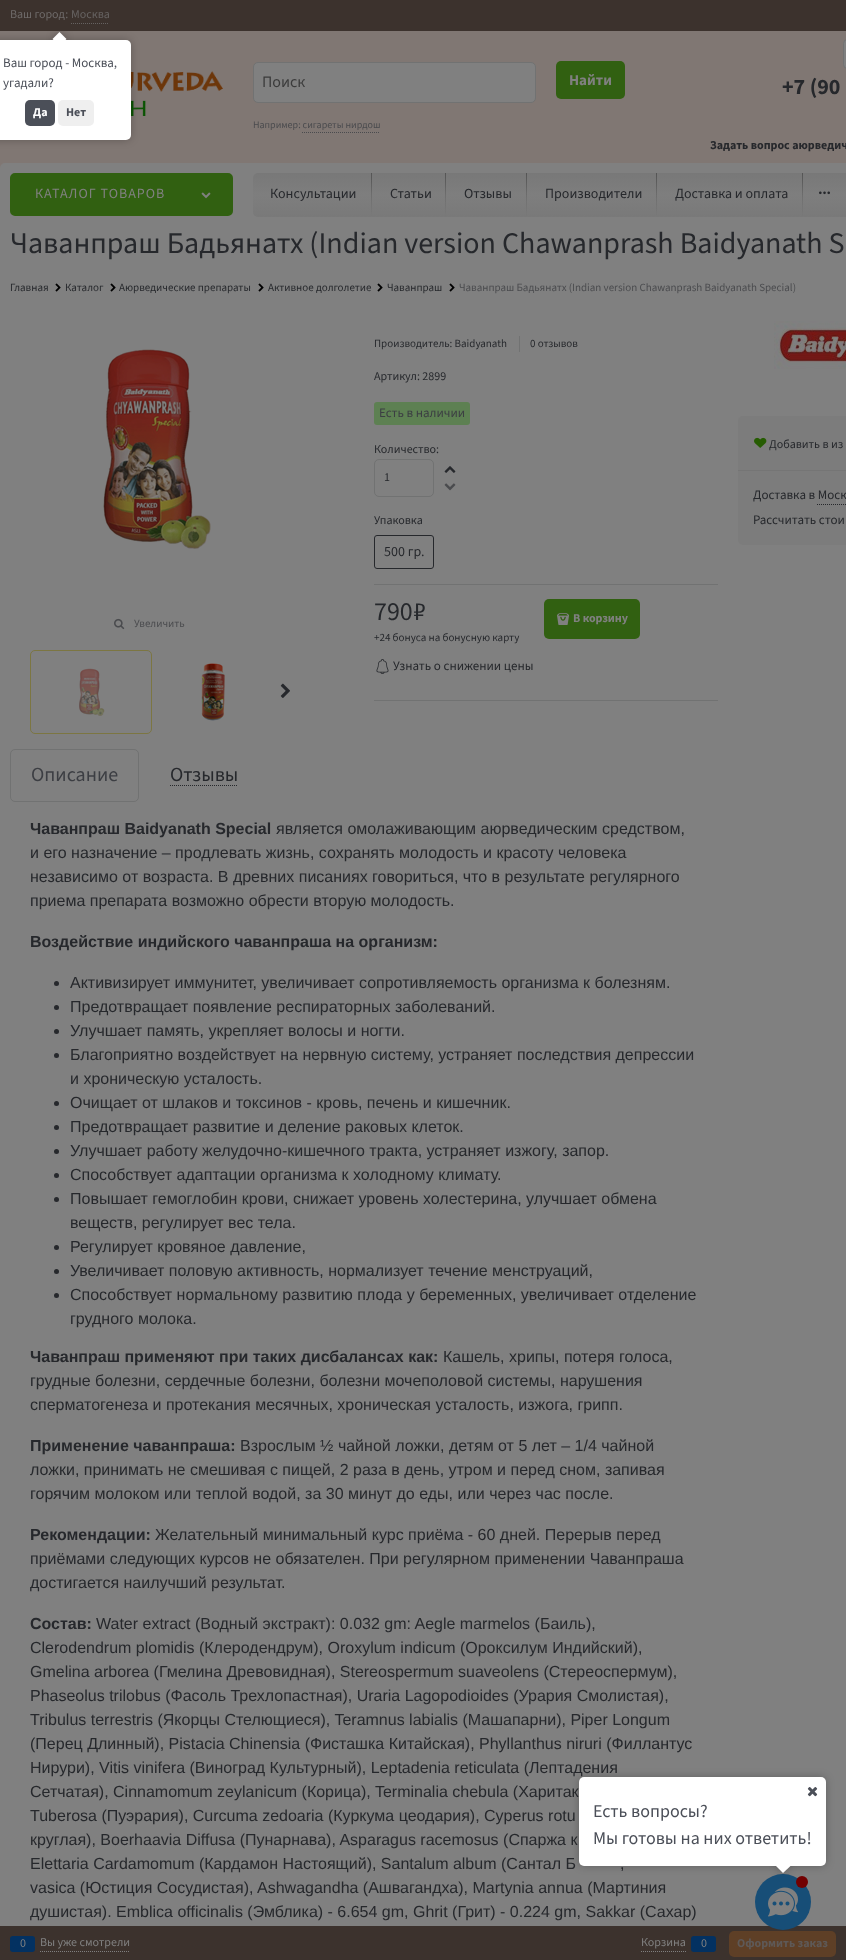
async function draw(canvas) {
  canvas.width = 846;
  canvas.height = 1960;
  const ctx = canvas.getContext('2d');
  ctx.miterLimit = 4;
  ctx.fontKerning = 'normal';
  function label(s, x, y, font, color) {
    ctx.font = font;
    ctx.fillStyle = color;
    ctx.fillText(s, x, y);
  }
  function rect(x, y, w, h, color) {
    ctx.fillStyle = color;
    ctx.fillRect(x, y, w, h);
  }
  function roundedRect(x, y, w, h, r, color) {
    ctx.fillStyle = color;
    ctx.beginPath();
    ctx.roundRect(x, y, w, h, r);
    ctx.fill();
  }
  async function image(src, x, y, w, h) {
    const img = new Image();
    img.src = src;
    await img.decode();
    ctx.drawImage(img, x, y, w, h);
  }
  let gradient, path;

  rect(0, 0, 846, 1960, '#fff');
  rect(0, 0, 846, 31, '#3c322d');
  label('Ваш город:', 10, 18, '12px "Source Sans 3"', '#6e6a69');
  label('Москва', 71, 18, '12px "Source Sans 3"', '#666261');
  path = new Path2D('M71 23.5H109');
  ctx.strokeStyle = '#666261';
  ctx.setLineDash([1, 1]);
  ctx.stroke(path);
  await image('assets/img16.png', 0, 31, 846, 137);
  await image('assets/img1.png', 131, 71, 92, 45);
  ctx.fillStyle = '#808080';
  ctx.beginPath();
  ctx.roundRect(253.5, 62.5, 282, 40, 4.5);
  ctx.fill();
  ctx.strokeStyle = '#717272';
  ctx.setLineDash([]);
  ctx.stroke();
  label('Поиск', 262, 87, '16px "Source Sans 3"', '#3b3b3b');
  label('Например: сигареты нирдош', 253, 128, '10px "Source Sans 3"', '#4a4b4e');
  path = new Path2D('M302 132.5H380');
  ctx.strokeStyle = '#4a4b4e';
  ctx.setLineDash([1, 1]);
  ctx.stroke(path);
  roundedRect(556, 61, 69, 38, 5, '#316011');
  label('Найти', 569, 85, 'bold 15px "Source Sans 3"', '#808080');
  ctx.beginPath();
  ctx.roundRect(843.5, 39.5, 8, 29, 4.5);
  ctx.fill();
  ctx.strokeStyle = '#717272';
  ctx.setLineDash([]);
  ctx.stroke();
  label('+7 (90', 782, 94, 'bold 22px "Source Sans 3"', '#26282c');
  label('Задать вопрос аюрведич', 710, 149, 'bold 12px "Source Sans 3"', '#26282c');
  roundedRect(0, 163, 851, 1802, 5, '#808080');
  ctx.fillStyle = '#316011';
  ctx.beginPath();
  ctx.roundRect(11, 174, 221, 41, 4);
  ctx.fill();
  ctx.strokeStyle = '#316011';
  ctx.lineWidth = 2;
  ctx.stroke();
  ctx.letterSpacing = '1px';
  label('КАТАЛОГ ТОВАРОВ', 35, 198, '14px "Source Sans 3"', '#808080');
  await image('assets/img2.png', 201, 192, 10, 7);
  gradient = ctx.createLinearGradient(607, 173, 607, 217);
  gradient.addColorStop(0, '#787878');
  gradient.addColorStop(0.5, '#7e7e7e');
  gradient.addColorStop(1, '#797979');
  ctx.fillStyle = gradient;
  ctx.beginPath();
  ctx.roundRect(253, 173, 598, 44, 5);
  ctx.fill();
  ctx.letterSpacing = '0px';
  label('Консультации', 270, 198, '14px "Source Sans 3"', '#26282c');
  gradient = ctx.createLinearGradient(372, 173, 372, 217);
  gradient.addColorStop(0, '#1d1d1d63');
  gradient.addColorStop(0.17, '#1d1d1d54');
  gradient.addColorStop(0.61, '#1d1d1d1f');
  gradient.addColorStop(0.96, '#1d1d1d03');
  gradient.addColorStop(0.98, '#80808003');
  gradient.addColorStop(1, '#80808000');
  ctx.fillStyle = gradient;
  ctx.fillRect(371, 173, 1, 44);
  label('Статьи', 390, 198, '14px "Source Sans 3"', '#26282c');
  gradient = ctx.createLinearGradient(446, 173, 446, 217);
  gradient.addColorStop(0, '#1d1d1d63');
  gradient.addColorStop(0.17, '#1d1d1d54');
  gradient.addColorStop(0.61, '#1d1d1d1f');
  gradient.addColorStop(0.96, '#1d1d1d03');
  gradient.addColorStop(0.98, '#80808003');
  gradient.addColorStop(1, '#80808000');
  ctx.fillStyle = gradient;
  ctx.fillRect(445, 173, 1, 44);
  label('Отзывы', 464, 198, '14px "Source Sans 3"', '#26282c');
  gradient = ctx.createLinearGradient(527, 173, 527, 217);
  gradient.addColorStop(0, '#1d1d1d63');
  gradient.addColorStop(0.17, '#1d1d1d54');
  gradient.addColorStop(0.61, '#1d1d1d1f');
  gradient.addColorStop(0.96, '#1d1d1d03');
  gradient.addColorStop(0.98, '#80808003');
  gradient.addColorStop(1, '#80808000');
  ctx.fillStyle = gradient;
  ctx.fillRect(526, 173, 1, 44);
  label('Производители', 545, 198, '14px "Source Sans 3"', '#26282c');
  gradient = ctx.createLinearGradient(657, 173, 657, 217);
  gradient.addColorStop(0, '#1d1d1d63');
  gradient.addColorStop(0.17, '#1d1d1d54');
  gradient.addColorStop(0.61, '#1d1d1d1f');
  gradient.addColorStop(0.96, '#1d1d1d03');
  gradient.addColorStop(0.98, '#80808003');
  gradient.addColorStop(1, '#80808000');
  ctx.fillStyle = gradient;
  ctx.fillRect(656, 173, 1, 44);
  label('Доставка и оплата', 675, 198, '14px "Source Sans 3"', '#26282c');
  gradient = ctx.createLinearGradient(803, 173, 803, 217);
  gradient.addColorStop(0, '#1d1d1d63');
  gradient.addColorStop(0.17, '#1d1d1d54');
  gradient.addColorStop(0.61, '#1d1d1d1f');
  gradient.addColorStop(0.96, '#1d1d1d03');
  gradient.addColorStop(0.98, '#80808003');
  gradient.addColorStop(1, '#80808000');
  ctx.fillStyle = gradient;
  ctx.fillRect(802, 173, 1, 44);
  await image('assets/img3.png', 819, 191, 11, 4);
  label('Чаванпраш Бадьянатх (Indian version Chawanprash Baidyanath S', 10, 253, '30px "Source Sans 3"', '#26282c');
  label('Главная', 10, 291, '11px "Source Sans 3"', '#26282c');
  await image('assets/img4.png', 55, 283, 6, 9);
  label('Каталог', 65, 291, '11px "Source Sans 3"', '#26282c');
  await image('assets/img4.png', 110, 283, 6, 9);
  label('Аюрведические препараты', 119, 291, '11px "Source Sans 3"', '#26282c');
  await image('assets/img4.png', 258, 283, 6, 9);
  label('Активное долголетие', 268, 291, '11px "Source Sans 3"', '#26282c');
  await image('assets/img4.png', 377, 283, 6, 9);
  label('Чаванпраш', 387, 291, '11px "Source Sans 3"', '#26282c');
  await image('assets/img4.png', 449, 283, 6, 9);
  label('Чаванпраш Бадьянатх (Indian version Chawanprash Baidyanath Special)', 459, 291, '11px "Source Sans 3"', '#4a4b4e');
  await image('assets/img5.png', 103, 349, 108, 200);
  await image('assets/img6.png', 114, 618, 11, 12);
  label('Увеличить', 134, 627, '11px "Source Sans 3"', '#4a4b4e');
  ctx.beginPath();
  ctx.roundRect(30.5, 650.5, 121, 83, 4.5);
  ctx.strokeStyle = '#7c7642';
  ctx.lineWidth = 1;
  ctx.stroke();
  await image('assets/img7.png', 79, 668, 26, 48);
  await image('assets/img8.png', 201, 663, 24, 58);
  await image('assets/img9.png', 280, 683, 10, 15);
  label('Производитель: Baidyanath', 374, 347, '11px "Source Sans 3"', '#26282c');
  rect(519, 336, 1, 16, '#717272');
  label('0 отзывов', 530, 347, '11px "Source Sans 3"', '#26282c');
  label('Артикул: 2899', 374, 380, '12px "Source Sans 3"', '#26282c');
  roundedRect(374, 402, 96, 23, 3, '#5d8052');
  label('Есть в наличии', 379, 417, '13px "Source Sans 3"', '#3c3e43');
  label('Количество:', 374, 453, '12px "Source Sans 3"', '#26282c');
  ctx.beginPath();
  ctx.roundRect(374.5, 459.5, 59, 37, 4.5);
  ctx.strokeStyle = '#717272';
  ctx.stroke();
  label('1', 384, 481, '12px "Source Sans 3"', '#26282c');
  await image('assets/img10.png', 444, 466, 12, 7);
  await image('assets/img11.png', 444, 483, 12, 8);
  label('Упаковка', 374, 524, '12px "Source Sans 3"', '#26282c');
  ctx.beginPath();
  ctx.roundRect(374.5, 535.5, 59, 33, 2.5);
  ctx.strokeStyle = '#26282c';
  ctx.stroke();
  label('500 гр.', 384, 556, '14px "Source Sans 3"', '#26282c');
  rect(374, 584, 344, 1, '#717272');
  rect(374, 700, 344, 1, '#717272');
  label('790₽', 374, 620, '26px "Source Sans 3"', '#26282c');
  label('+24 бонуса на бонусную карту', 374, 641, '11px "Source Sans 3"', '#26282c');
  await image('assets/img12.png', 376, 659, 13, 15);
  label('Узнать о снижении цены', 393, 670, '13px "Source Sans 3"', '#26282c');
  roundedRect(544, 599, 96, 40, 5, '#316011');
  await image('assets/img13.png', 557, 613, 12, 12);
  label('В корзину', 573, 622, 'bold 12px "Source Sans 3"', '#808080');
  ctx.beginPath();
  ctx.roundRect(10.5, 749.5, 128, 52, 4.5);
  ctx.strokeStyle = '#717272';
  ctx.stroke();
  label('Описание', 31, 781, '20px "Source Sans 3"', '#3c3e43');
  path = new Path2D('M170 785.5H238');
  ctx.strokeStyle = '#26282c';
  ctx.setLineDash([1, 1]);
  ctx.stroke(path);
  label('Отзывы', 170, 781, '20px "Source Sans 3"', '#26282c');
  label('Чаванпраш Baidyanath Special', 30, 834, 'bold 16px Liberation Sans', '#26282c');
  label('является омолаживающим аюрведическим средством,', 276, 834, '16px Liberation Sans', '#26282c');
  label('и его назначение – продлевать жизнь, сохранять молодость и красоту человека', 30, 858, '16px Liberation Sans', '#26282c');
  label('независимо от возраста. В древних писаниях говориться, что в результате регулярного', 30, 882, '16px Liberation Sans', '#26282c');
  label('приема препарата возможно обрести вторую молодость.', 30, 906, '16px Liberation Sans', '#26282c');
  label('Воздействие индийского чаванпраша на организм:', 30, 947, 'bold 16px Liberation Sans', '#26282c');
  ctx.beginPath();
  ctx.arc(56.5, 983.5, 2.5, 0, 2 * Math.PI);
  ctx.fill();
  label('Активизирует иммунитет, увеличивает сопротивляемость организма к болезням.', 70, 988, '16px Liberation Sans', '#26282c');
  ctx.beginPath();
  ctx.arc(56.5, 1007.5, 2.5, 0, 2 * Math.PI);
  ctx.fill();
  label('Предотвращает появление респираторных заболеваний.', 70, 1012, '16px Liberation Sans', '#26282c');
  ctx.beginPath();
  ctx.arc(56.5, 1031.5, 2.5, 0, 2 * Math.PI);
  ctx.fill();
  label('Улучшает память, укрепляет волосы и ногти.', 70, 1036, '16px Liberation Sans', '#26282c');
  ctx.beginPath();
  ctx.arc(56.5, 1055.5, 2.5, 0, 2 * Math.PI);
  ctx.fill();
  label('Благоприятно воздействует на нервную систему, устраняет последствия депрессии', 70, 1060, '16px Liberation Sans', '#26282c');
  label('и хроническую усталость.', 70, 1084, '16px Liberation Sans', '#26282c');
  ctx.beginPath();
  ctx.arc(56.5, 1103.5, 2.5, 0, 2 * Math.PI);
  ctx.fill();
  label('Очищает от шлаков и токсинов - кровь, печень и кишечник.', 70, 1108, '16px Liberation Sans', '#26282c');
  ctx.beginPath();
  ctx.arc(56.5, 1127.5, 2.5, 0, 2 * Math.PI);
  ctx.fill();
  label('Предотвращает развитие и деление раковых клеток.', 70, 1132, '16px Liberation Sans', '#26282c');
  ctx.beginPath();
  ctx.arc(56.5, 1151.5, 2.5, 0, 2 * Math.PI);
  ctx.fill();
  label('Улучшает работу желудочно-кишечного тракта, устраняет изжогу, запор.', 70, 1156, '16px Liberation Sans', '#26282c');
  ctx.beginPath();
  ctx.arc(56.5, 1175.5, 2.5, 0, 2 * Math.PI);
  ctx.fill();
  label('Способствует адаптации организма к холодному климату.', 70, 1180, '16px Liberation Sans', '#26282c');
  ctx.beginPath();
  ctx.arc(56.5, 1199.5, 2.5, 0, 2 * Math.PI);
  ctx.fill();
  label('Повышает гемоглобин крови, снижает уровень холестерина, улучшает обмена', 70, 1204, '16px Liberation Sans', '#26282c');
  label('веществ, регулирует вес тела.', 70, 1228, '16px Liberation Sans', '#26282c');
  ctx.beginPath();
  ctx.arc(56.5, 1247.5, 2.5, 0, 2 * Math.PI);
  ctx.fill();
  label('Регулирует кровяное давление,', 70, 1252, '16px Liberation Sans', '#26282c');
  ctx.beginPath();
  ctx.arc(56.5, 1271.5, 2.5, 0, 2 * Math.PI);
  ctx.fill();
  label('Увеличивает половую активность, нормализует течение менструаций,', 70, 1276, '16px Liberation Sans', '#26282c');
  ctx.beginPath();
  ctx.arc(56.5, 1295.5, 2.5, 0, 2 * Math.PI);
  ctx.fill();
  label('Способствует нормальному развитию плода у беременных, увеличивает отделение', 70, 1300, '16px Liberation Sans', '#26282c');
  label('грудного молока.', 70, 1324, '16px Liberation Sans', '#26282c');
  label('Чаванпраш применяют при таких дисбалансах как:', 30, 1362, 'bold 16px Liberation Sans', '#26282c');
  label('Кашель, хрипы, потеря голоса,', 443, 1362, '16px Liberation Sans', '#26282c');
  label('грудные болезни, сердечные болезни, болезни мочеполовой системы, нарушения', 30, 1386, '16px Liberation Sans', '#26282c');
  label('сперматогенеза и протекания месячных, хроническая усталость, изжога, грипп.', 30, 1410, '16px Liberation Sans', '#26282c');
  label('Применение чаванпраша:', 30, 1451, 'bold 16px Liberation Sans', '#26282c');
  label('Взрослым ½ чайной ложки, детям от 5 лет – 1/4 чайной', 240, 1451, '16px Liberation Sans', '#26282c');
  label('ложки, принимать не смешивая с пищей, 2 раза в день, утром и перед сном, запивая', 30, 1475, '16px Liberation Sans', '#26282c');
  label('горячим молоком или теплой водой, за 30 минут до еды, или через час после.', 30, 1499, '16px Liberation Sans', '#26282c');
  label('Рекомендации:', 30, 1540, 'bold 16px Liberation Sans', '#26282c');
  label('Желательный минимальный курс приёма - 60 дней. Перерыв перед', 155, 1540, '16px Liberation Sans', '#26282c');
  label('приёмами следующих курсов не обязателен. При регулярном применении Чаванпраша', 30, 1564, '16px Liberation Sans', '#26282c');
  label('достигается наилучший результат.', 30, 1588, '16px Liberation Sans', '#26282c');
  label('Состав:', 30, 1629, 'bold 16px Liberation Sans', '#26282c');
  label('Water extract (Водный экстракт): 0.032 gm: Aegle marmelos (Баиль),', 96, 1629, '16px Liberation Sans', '#26282c');
  label('Clerodendrum plomidis (Клеродендрум), Oroxylum indicum (Ороксилум Индийский),', 30, 1653, '16px Liberation Sans', '#26282c');
  label('Gmelina arborea (Гмелина Древовидная), Stereospermum suaveolens (Стереоспермум),', 30, 1677, '16px Liberation Sans', '#26282c');
  label('Phaseolus trilobus (Фасоль Трехлопастная), Uraria Lagopodioides (Урария Смолистая),', 30, 1701, '16px Liberation Sans', '#26282c');
  label('Tribulus terrestris (Якорцы Стелющиеся), Teramnus labialis (Машапарни), Piper Longum', 30, 1725, '16px Liberation Sans', '#26282c');
  label('(Перец Длинный), Pistacia Chinensia (Фисташка Китайская), Phyllanthus niruri (Филлантус', 30, 1749, '16px Liberation Sans', '#26282c');
  label('Нирури), Vitis vinifera (Виноград Культурный), Leptadenia reticulata (Лептадения', 30, 1773, '16px Liberation Sans', '#26282c');
  label('Сетчатая), Cinnamomum zeylanicum (Корица), Terminalia chebula (Харитак', 30, 1797, '16px Liberation Sans', '#26282c');
  label('Tuberosa (Пуэрария), Curcuma zedoaria (Куркума цеодария), Cyperus rotu', 30, 1821, '16px Liberation Sans', '#26282c');
  label('круглая), Boerhaavia Diffusa (Пунарнава), Asparagus racemosus (Спаржа к', 30, 1845, '16px Liberation Sans', '#26282c');
  label('Elettaria Cardamomum (Кардамон Настоящий), Santalum album (Сантал Б', 30, 1869, '16px Liberation Sans', '#26282c');
  label(',', 620, 1869, '16px Liberation Sans', '#26282c');
  label('vasica (Юстиция Сосудистая), Ashwagandha (Ашвагандха), Martynia annua (Мартиния', 30, 1893, '16px Liberation Sans', '#26282c');
  label('душистая). Emblica officinalis (Эмблика) - 6.654 gm, Ghrit (Грит) - 0.224 gm, Sakkar (Сахар)', 30, 1917, '16px Liberation Sans', '#26282c');
  await image('assets/img14.png', 774, 321, 72, 48);
  roundedRect(738, 416, 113, 129, 5, '#7c7c7c');
  rect(738, 470, 108, 1, '#757575');
  await image('assets/img15.png', 754, 437, 13, 11);
  label('Добавить в из', 769, 448, '12px "Source Sans 3"', '#26282c');
  label('Доставка в Моск', 753, 499, '13px "Source Sans 3"', '#26282c');
  path = new Path2D('M817 504.5H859');
  ctx.stroke(path);
  label('Рассчитать стои', 753, 524, '13px "Source Sans 3"', '#26282c');
  rect(0, 1926, 846, 34, '#3c322d');
  path = new Path2D('M40 1951.5H130');
  ctx.strokeStyle = '#808080';
  ctx.stroke(path);
  roundedRect(10, 1936, 25, 16, 3, '#033161');
  label('0', 20, 1947, '12px "Source Sans 3"', '#808080');
  label('Вы уже смотрели', 40, 1946, '12px "Source Sans 3"', '#808080');
  path = new Path2D('M641 1951.5H686');
  ctx.stroke(path);
  label('Корзина', 641, 1946, '12px "Source Sans 3"', '#808080');
  roundedRect(691, 1936, 25, 16, 3, '#033161');
  label('0', 701, 1947, '12px "Source Sans 3"', '#808080');
  roundedRect(729, 1931, 107, 26, 5, '#5e3f26');
  label('Оформить заказ', 737, 1947, 'bold 12px "Source Sans 3"', '#5e5957');
  ctx.fillStyle = '#00000040';
  ctx.filter = 'blur(4.5px)';
  ctx.beginPath();
  ctx.roundRect(-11, 40, 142, 100, 5);
  ctx.fill();
  ctx.filter = 'none';
  roundedRect(-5, 40, 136, 100, 5, '#fff');
  ctx.save();
  ctx.beginPath();
  ctx.rect(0, 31, 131, 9);
  ctx.clip();
  ctx.fillStyle = '#00000040';
  ctx.filter = 'blur(4.5px)';
  ctx.beginPath();
  ctx.rect(55, 34, 10, 10);
  ctx.fill();
  ctx.filter = 'none';
  ctx.restore();
  ctx.save();
  ctx.beginPath();
  ctx.rect(0, 31, 131, 9);
  ctx.clip();
  path = new Path2D('M59.5 32L66.5 39L59.5 46L52.5 39Z');
  ctx.fill(path);
  ctx.restore();
  label('Ваш город - Москва,', 3, 67, '13px "Source Sans 3"', '#4b4f58');
  label('угадали?', 3, 87, '13px "Source Sans 3"', '#4b4f58');
  roundedRect(25, 100, 30, 26, 5, '#4b4f58');
  label('Да', 33, 116, 'bold 12px "Source Sans 3"', '#fff');
  roundedRect(58, 100, 36, 26, 5, '#efefef');
  label('Нет', 66, 116, 'bold 12px "Source Sans 3"', '#4b4f58');
  ctx.fillStyle = '#174e77';
  ctx.beginPath();
  ctx.arc(783, 1902, 28, 0, 2 * Math.PI);
  ctx.fill();
  await image('assets/img18.png', 768, 1887, 30, 30);
  ctx.fillStyle = '#720001';
  ctx.beginPath();
  ctx.arc(802, 1882, 6, 0, 2 * Math.PI);
  ctx.fill();
  ctx.fillStyle = '#00000040';
  ctx.filter = 'blur(4.5px)';
  ctx.beginPath();
  ctx.roundRect(579, 1777, 247, 89, 5);
  ctx.fill();
  ctx.filter = 'none';
  roundedRect(579, 1777, 247, 89, 5, '#fff');
  await image('assets/img17.png', 807, 1787, 11, 10);
  label('Есть вопросы?', 593, 1817, '18px "Source Sans 3"', '#4b4f58');
  label('Мы готовы на них ответить!', 593, 1844, '18px "Source Sans 3"', '#4b4f58');
  ctx.save();
  ctx.beginPath();
  ctx.rect(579, 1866, 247, 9);
  ctx.clip();
  ctx.fillStyle = '#00000040';
  ctx.filter = 'blur(4.5px)';
  ctx.beginPath();
  ctx.rect(778, 1861, 10, 10);
  ctx.fill();
  ctx.filter = 'none';
  ctx.restore();
  ctx.save();
  ctx.beginPath();
  ctx.rect(579, 1866, 247, 9);
  ctx.clip();
  ctx.fillStyle = '#fff';
  path = new Path2D('M783 1858.5L790.5 1866L783 1873L776 1866Z');
  ctx.fill(path);
  ctx.restore();
}

draw(document.querySelector('canvas'));
